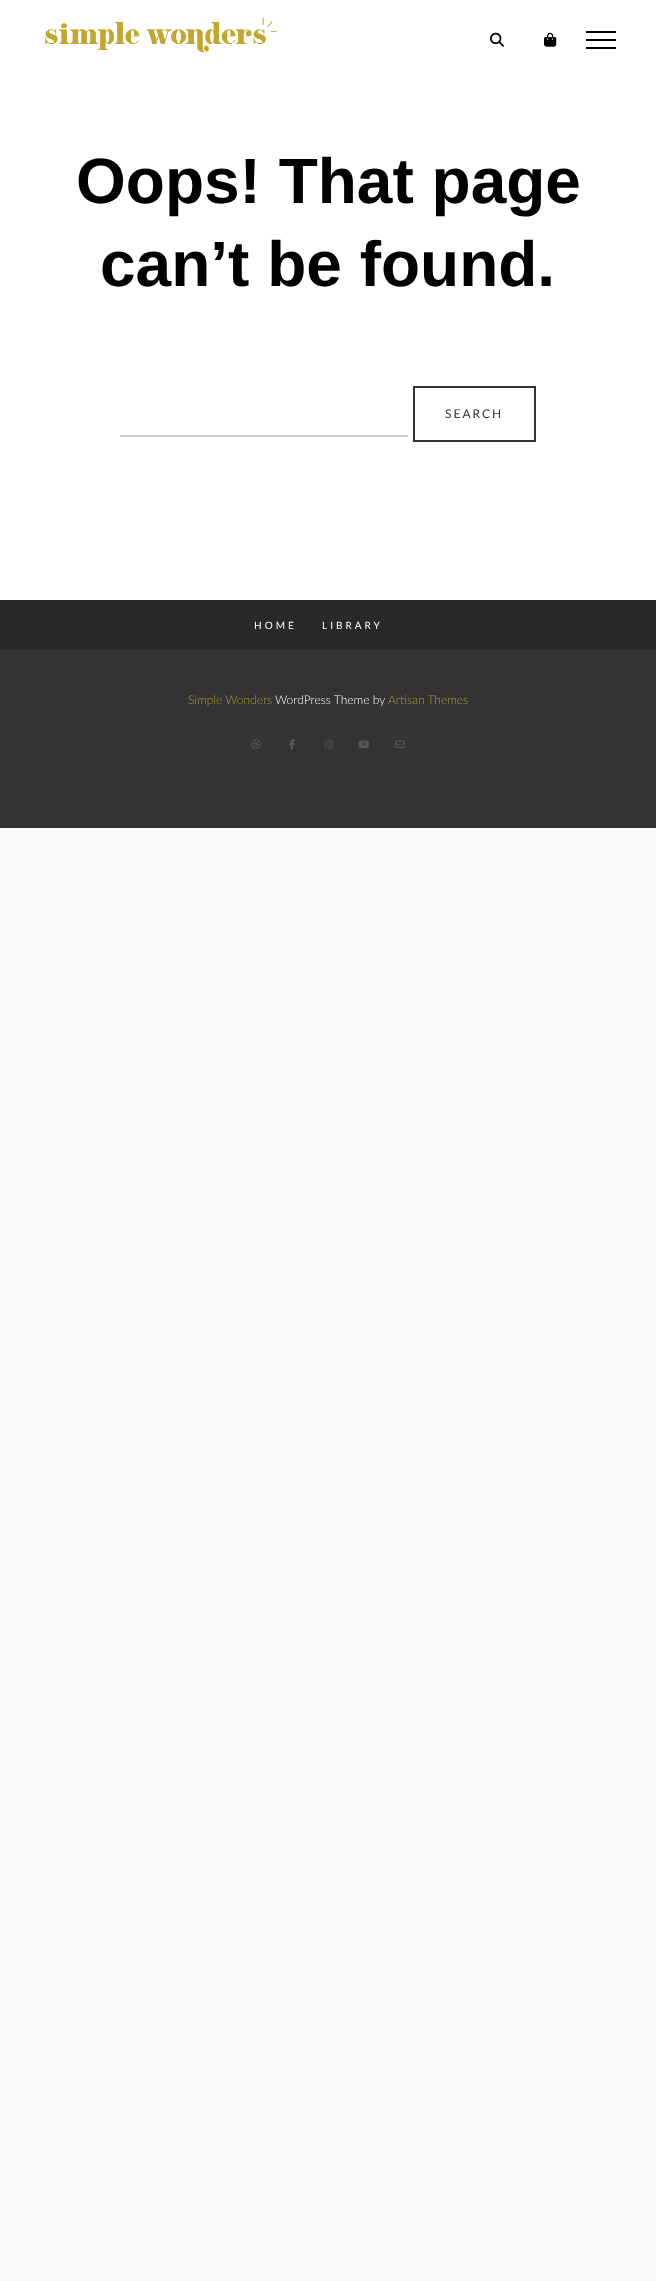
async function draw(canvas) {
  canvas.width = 656;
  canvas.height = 2281;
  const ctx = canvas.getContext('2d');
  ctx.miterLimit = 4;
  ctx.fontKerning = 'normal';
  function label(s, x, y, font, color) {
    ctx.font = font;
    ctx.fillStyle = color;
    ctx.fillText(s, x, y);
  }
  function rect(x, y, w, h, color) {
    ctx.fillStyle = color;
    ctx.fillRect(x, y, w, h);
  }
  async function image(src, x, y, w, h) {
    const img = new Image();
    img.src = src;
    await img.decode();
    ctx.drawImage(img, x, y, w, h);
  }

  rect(0, 0, 656, 2281, '#fafafa');
  rect(0, 0, 656, 600, '#fff');
  await image('assets/img1.png', 45, 17, 232, 36);
  await image('assets/img2.png', 490, 32, 14, 15);
  await image('assets/img3.png', 544, 32, 13, 15);
  rect(586, 31, 30, 2, '#000');
  rect(586, 39, 30, 2, '#000');
  rect(586, 47, 30, 2, '#000');
  label('Oops! That page', 76, 203, 'bold 64px Liberation Sans', '#000');
  label('can’t be found.', 100, 286, 'bold 64px Liberation Sans', '#000');
  ctx.beginPath();
  ctx.rect(414, 387, 121, 54);
  ctx.strokeStyle = '#333';
  ctx.lineWidth = 2;
  ctx.stroke();
  ctx.letterSpacing = '2px';
  label('SEARCH', 445, 418, '12px Lato', '#333');
  rect(120, 435, 288, 2, '#ccc');
  rect(0, 650, 656, 178, '#333');
  rect(0, 600, 656, 50, '#292929');
  ctx.letterSpacing = '3px';
  label('HOME', 254, 629, '10px Lato', '#fff');
  label('LIBRARY', 322, 629, '10px Lato', '#fff');
  ctx.letterSpacing = '0px';
  label('Simple Wonders', 188, 704, '300 12px Lato', '#ad9e2f');
  label('WordPress Theme by', 275, 704, '300 12px Lato', '#fff');
  label('Artisan Themes', 388, 704, '300 12px Lato', '#ad9e2f');
  await image('assets/img4.png', 251, 739, 10, 10);
  await image('assets/img5.png', 289, 739, 6, 11);
  await image('assets/img6.png', 324, 739, 9, 10);
  await image('assets/img7.png', 358, 740, 11, 8);
  await image('assets/img8.png', 395, 740, 10, 8);
}

draw(document.querySelector('canvas'));
